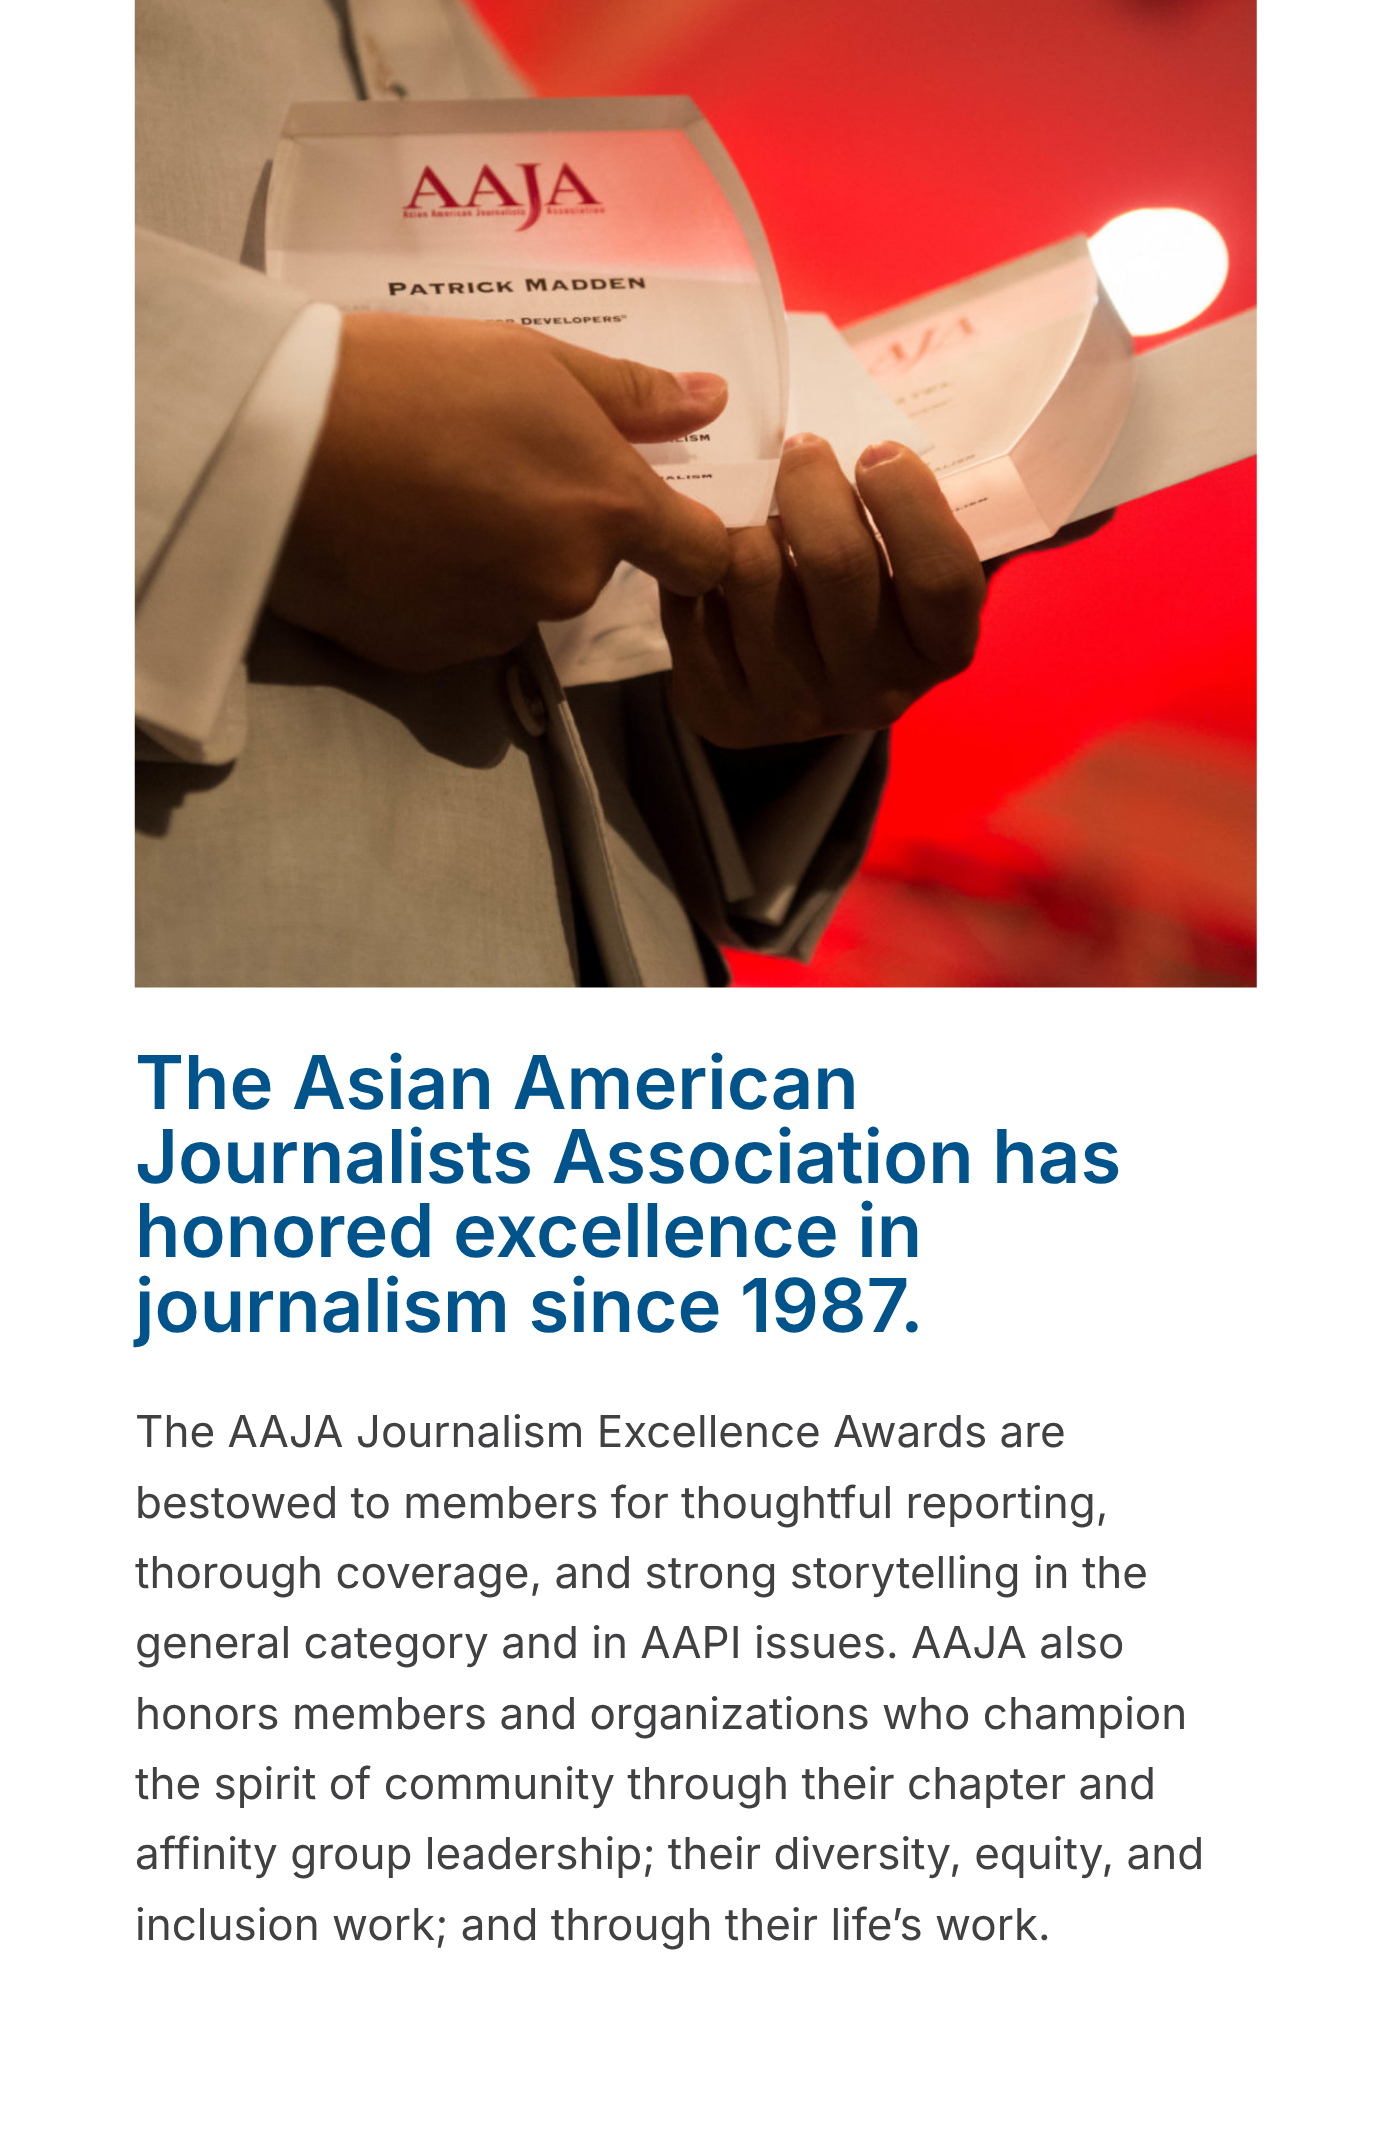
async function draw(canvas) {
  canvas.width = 1390;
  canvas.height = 2146;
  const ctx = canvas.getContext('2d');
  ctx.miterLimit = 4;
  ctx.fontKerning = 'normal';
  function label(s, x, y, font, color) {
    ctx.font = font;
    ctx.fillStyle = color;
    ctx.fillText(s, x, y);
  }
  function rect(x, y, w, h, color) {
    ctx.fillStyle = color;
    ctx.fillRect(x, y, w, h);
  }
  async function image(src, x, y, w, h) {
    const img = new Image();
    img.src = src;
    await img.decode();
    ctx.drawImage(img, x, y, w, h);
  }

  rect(0, 0, 1390, 2146, '#fff');
  await image('assets/img1.png', 134, 0, 1123, 988);
  label('The Asian American', 135, 1109, '600 74.25px Inter', '#00538b');
  label('Journalists Association has', 135, 1183, '600 74.25px Inter', '#00538b');
  label('honored excellence in', 135, 1257, '600 74.25px Inter', '#00538b');
  label('journalism since 1987.', 135, 1332, '600 74.25px Inter', '#00538b');
  label('The AAJA Journalism Excellence Awards are', 135, 1447, '44px Inter', '#414042');
  label('bestowed to members for thoughtful reporting,', 135, 1518, '44px Inter', '#414042');
  label('thorough coverage, and strong storytelling in the', 135, 1588, '44px Inter', '#414042');
  label('general category and in AAPI issues. AAJA also', 135, 1658, '44px Inter', '#414042');
  label('honors members and organizations who champion', 135, 1729, '44px Inter', '#414042');
  label('the spirit of community through their chapter and', 135, 1799, '44px Inter', '#414042');
  label('affinity group leadership; their diversity, equity, and', 135, 1869, '44px Inter', '#414042');
  label('inclusion work; and through their life’s work.', 135, 1940, '44px Inter', '#414042');
}

draw(document.querySelector('canvas'));
